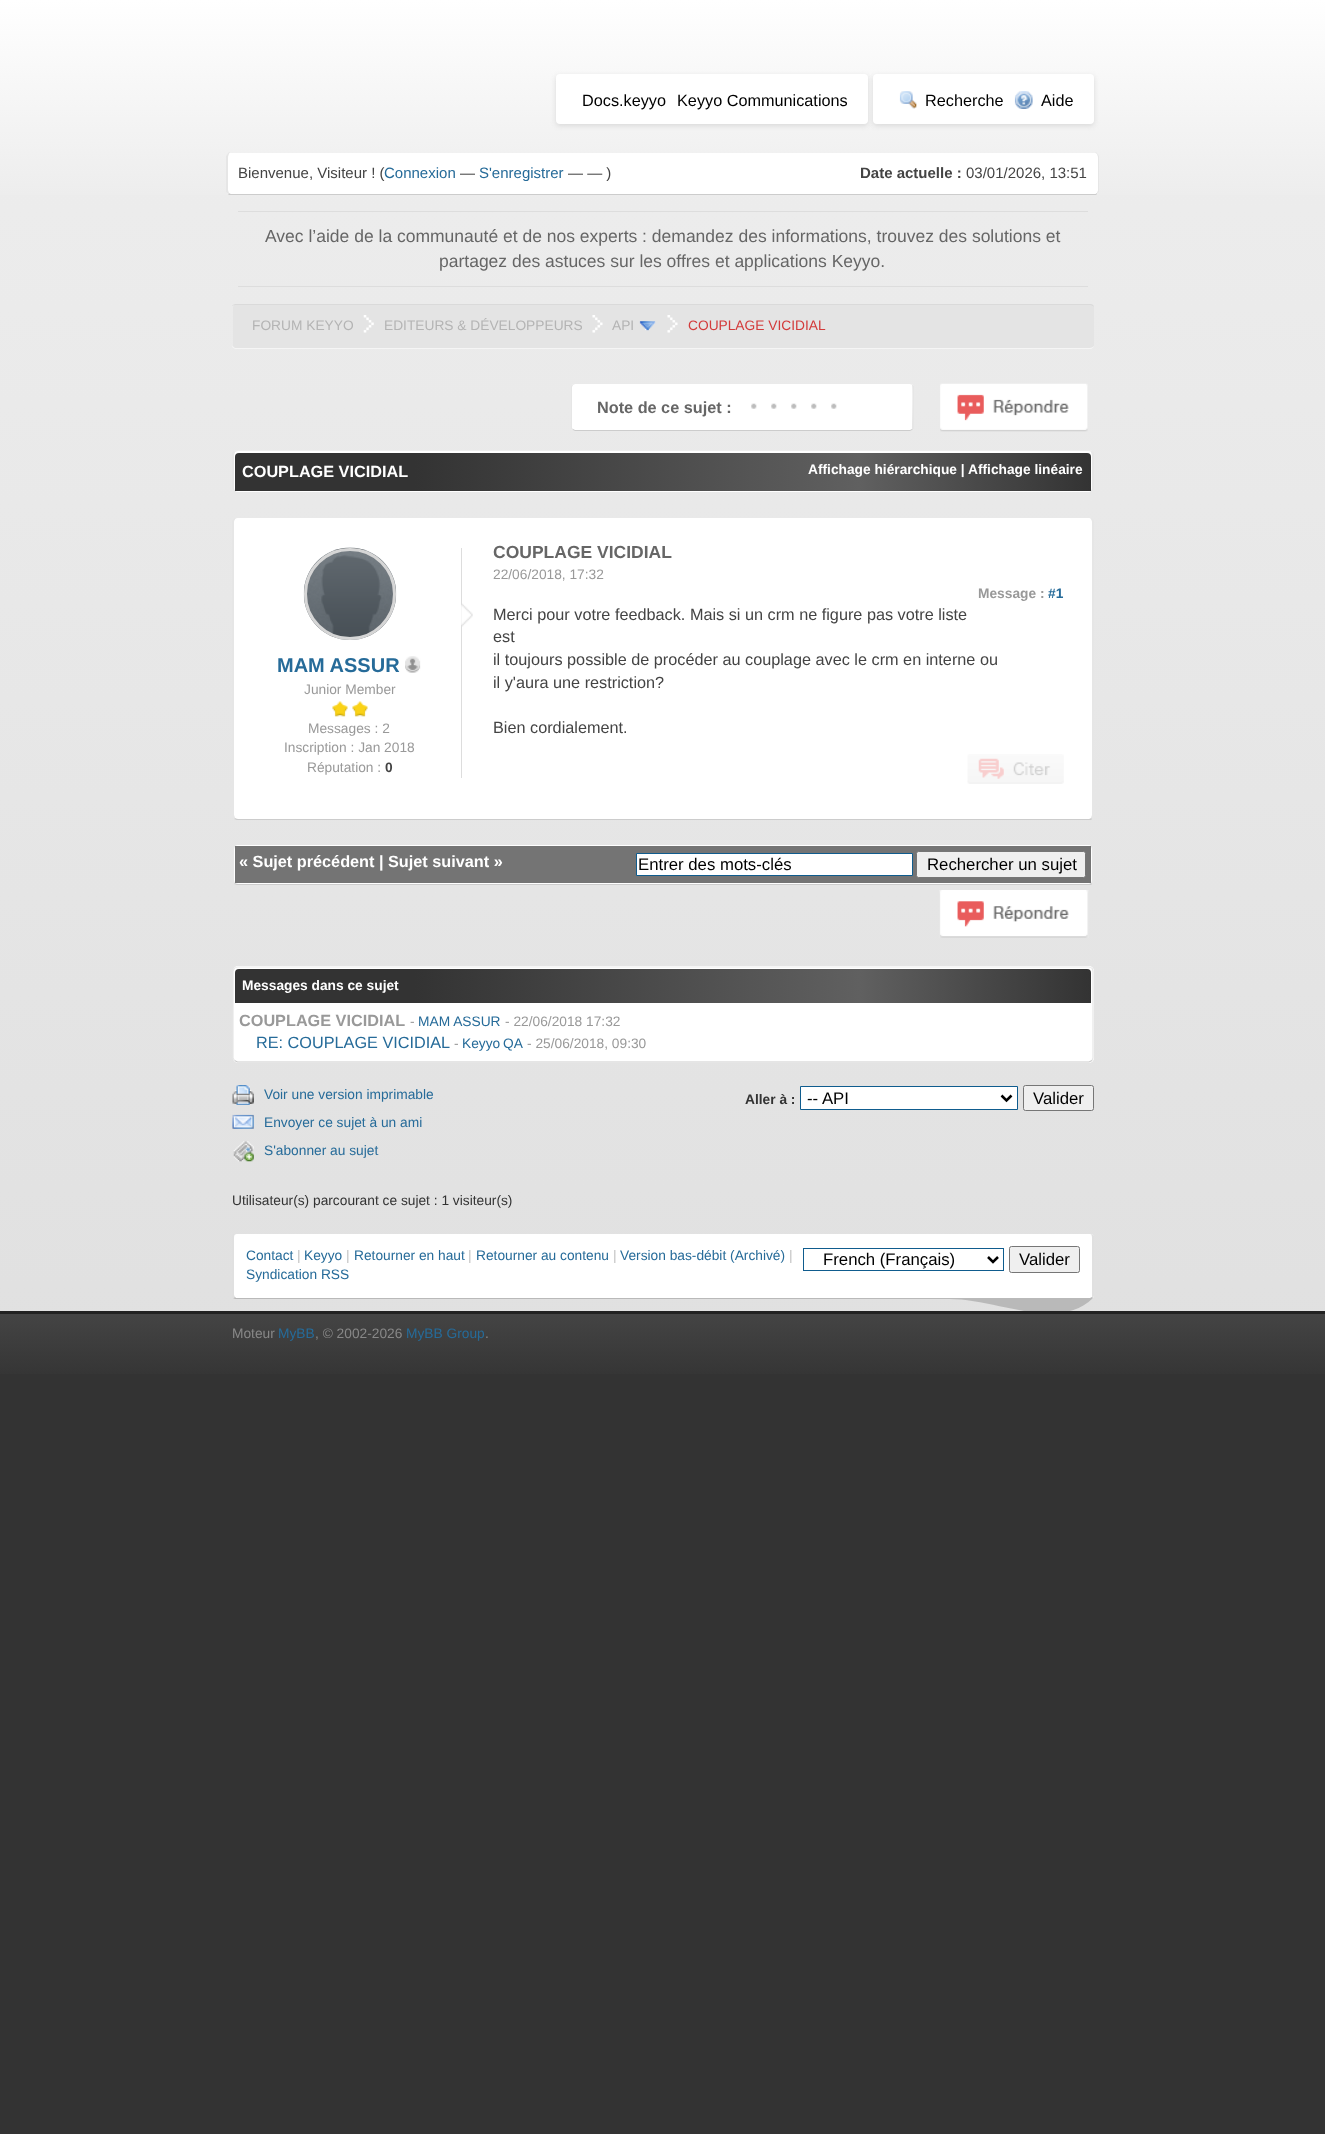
async function draw(canvas) {
  canvas.width = 1325;
  canvas.height = 2134;
  const ctx = canvas.getContext('2d');
  ctx.miterLimit = 4;
  ctx.fontKerning = 'normal';
  function label(s, x, y, font, color) {
    ctx.font = font;
    ctx.fillStyle = color;
    ctx.fillText(s, x, y);
  }
  function rect(x, y, w, h, color) {
    ctx.fillStyle = color;
    ctx.fillRect(x, y, w, h);
  }
  function roundedRect(x, y, w, h, r, color) {
    ctx.fillStyle = color;
    ctx.beginPath();
    ctx.roundRect(x, y, w, h, r);
    ctx.fill();
  }
  async function image(src, x, y, w, h) {
    const img = new Image();
    img.src = src;
    await img.decode();
    ctx.drawImage(img, x, y, w, h);
  }
  let gradient, path;

  rect(0, 0, 1325, 2134, '#333');
  gradient = ctx.createLinearGradient(662, 0, 663, 1384);
  gradient.addColorStop(0.01, '#eee');
  gradient.addColorStop(1, '#e0e0e0');
  ctx.fillStyle = gradient;
  ctx.fillRect(0, 195, 1325, 1116);
  gradient = ctx.createLinearGradient(663, 0, 663, 195);
  gradient.addColorStop(0, '#fff');
  gradient.addColorStop(1, '#ededed');
  ctx.fillStyle = gradient;
  ctx.fillRect(0, 0, 1325, 195);
  ctx.fillStyle = '#dadada';
  ctx.filter = 'blur(2.5px)';
  ctx.beginPath();
  ctx.roundRect(556, 76, 312, 50, 4);
  ctx.fill();
  ctx.filter = 'none';
  roundedRect(556, 74, 312, 50, 4, '#fff');
  label('Docs.keyyo', 582, 106, '16.25px Liberation Sans', '#000');
  label('Keyyo Communications', 677, 106, '16.25px Liberation Sans', '#000');
  ctx.fillStyle = '#dadada';
  ctx.filter = 'blur(2.5px)';
  ctx.beginPath();
  ctx.roundRect(873, 76, 221, 50, 4);
  ctx.fill();
  ctx.filter = 'none';
  roundedRect(873, 74, 221, 50, 4, '#fff');
  await image('assets/img1.png', 899, 91, 18, 18);
  label('Recherche', 925, 106, '16.25px Liberation Sans', '#000');
  await image('assets/img2.png', 1014, 91, 19, 18);
  label('Aide', 1041, 106, '16.25px Liberation Sans', '#000');
  roundedRect(226, 153, 873, 42, 5, '#fff');
  ctx.fillStyle = '#e6e6e6';
  path = new Path2D('M1097 193C1097 192 1098 191 1098 190V158C1098 156 1097 153 1095 152H1096C1097 153 1098 155 1099 156V192L1097 194Z');
  ctx.fill(path);
  ctx.fillStyle = '#ccc';
  path = new Path2D('M231 195H1094C1095 195 1097 195 1097 194V193C1096 194 1095 194 1094 194H231C230 194 229 193 229 193L228 194C228 195 230 195 231 195Z');
  ctx.fill(path);
  ctx.fillStyle = '#e6e6e6';
  path = new Path2D('M230 152C229 153 228 156 228 158V190L229 193L228 194L226 192V156C227 155 228 153 229 152Z');
  ctx.fill(path);
  label('Bienvenue, Visiteur ! (', 238, 178, '15px Liberation Sans', '#444');
  label('Connexion', 384, 178, '15px Liberation Sans', '#266b99');
  label('—', 460, 178, '15px Liberation Sans', '#444');
  label('S\'enregistrer', 479, 178, '15px Liberation Sans', '#266b99');
  label('— — )', 568, 178, '15px Liberation Sans', '#444');
  label('Date actuelle :', 860, 178, 'bold 15px Liberation Sans', '#444');
  label('03/01/2026, 13:51', 966, 178, '15px Liberation Sans', '#444');
  rect(238, 211, 850, 1, '#ddd');
  rect(238, 286, 850, 1, '#ddd');
  label('Avec l’aide de la communauté et de nos experts : demandez des informations, trouvez des solutions et', 265, 242, '17.5px Liberation Sans', '#666');
  label('partagez des astuces sur les offres et applications Keyyo.', 439, 267, '17.5px Liberation Sans', '#666');
  roundedRect(233, 304, 861, 45, 4, '#e4e4e4');
  ctx.fillStyle = '#dadada';
  path = new Path2D('M236 304H1090C1092 304 1094 305 1094 307C1093 306 1092 305 1090 305H236C235 305 233 305 232 306C232 305 234 304 236 304Z');
  ctx.fill(path);
  ctx.fillStyle = '#f5f5f5';
  path = new Path2D('M235 349L232 347V346L235 348H1090C1091 348 1093 347 1094 346C1094 347 1092 349 1091 349Z');
  ctx.fill(path);
  label('FORUM KEYYO', 252, 330, '13.75px Liberation Sans', '#b4b4b4');
  await image('assets/img3.png', 363, 315, 11, 18);
  label('EDITEURS & DÉVELOPPEURS', 384, 330, '13.75px Liberation Sans', '#b4b4b4');
  await image('assets/img4.png', 592, 315, 11, 18);
  label('API', 612, 330, '13.75px Liberation Sans', '#b4b4b4');
  await image('assets/img5.png', 639, 321, 17, 10);
  await image('assets/img4.png', 667, 315, 11, 18);
  label('COUPLAGE VICIDIAL', 688, 330, '13.75px Liberation Sans', '#d33b3b');
  roundedRect(571, 384, 343, 47, 4, '#fff');
  ctx.fillStyle = '#e6e6e6';
  path = new Path2D('M914 429L913 430L912 429C912 428 913 388 912 385L910 384C912 384 913 385 914 386Z');
  ctx.fill(path);
  ctx.fillStyle = '#ccc';
  path = new Path2D('M573 429L575 430H910L912 429L913 430L910 431H575L572 430Z');
  ctx.fill(path);
  ctx.fillStyle = '#e6e6e6';
  path = new Path2D('M575 384L573 385L572 387V428L573 429L572 430L571 429V386C571 385 574 384 575 384Z');
  ctx.fill(path);
  label('Note de ce sujet :', 597, 413, 'bold 16.25px Liberation Sans', '#666');
  await image('assets/img6.png', 751, 403, 86, 6);
  await image('assets/img7.png', 940, 383, 148, 49);
  ctx.fillStyle = '#fff';
  path = new Path2D('M238 451H1089C1091 451 1092 453 1092 455V488C1092 490 1091 492 1089 492H238C235 492 234 490 234 488V455C234 453 235 451 238 451Z');
  ctx.fill(path);
  ctx.fillStyle = '#eee';
  path = new Path2D('M238 450C236 450 235 450 234 451L235 452C235 452 236 451 238 451H1089C1090 451 1091 452 1091 452L1092 451C1092 450 1090 450 1089 450Z');
  ctx.fill(path);
  ctx.fillStyle = '#e6e6e6';
  path = new Path2D('M1094 453V489C1093 491 1091 492 1089 492C1091 492 1092 490 1092 488V455L1091 452L1092 451Z');
  ctx.fill(path);
  path = new Path2D('M232 453L234 451L235 452L234 455V488C234 490 235 492 238 492C236 492 233 491 232 489Z');
  ctx.fill(path);
  gradient = ctx.createLinearGradient(235, 472, 1091, 472);
  gradient.addColorStop(0.21, '#333');
  gradient.addColorStop(0.73, '#606060');
  gradient.addColorStop(1, '#333');
  ctx.fillStyle = gradient;
  ctx.beginPath();
  ctx.roundRect(235, 453, 856, 38, [4, 4, 0, 0]);
  ctx.fill();
  label('COUPLAGE VICIDIAL', 242, 477, 'bold 16.25px Liberation Sans', '#fff');
  label('Affichage hiérarchique | Affichage linéaire', 808, 474, 'bold 13.75px Liberation Sans', '#fff');
  path = new Path2D('M238 518H1089C1091 518 1092 520 1092 522V815C1092 817 1091 819 1089 819H238C235 819 234 817 234 815V522C234 520 235 518 238 518Z');
  ctx.fill(path);
  ctx.fillStyle = '#e6e6e6';
  path = new Path2D('M1094 817L1092 819L1091 818L1092 815V522C1092 520 1091 518 1089 518C1091 518 1093 519 1094 521Z');
  ctx.fill(path);
  ctx.fillStyle = '#ccc';
  path = new Path2D('M235 818C235 818 236 819 238 819H1089C1090 819 1091 818 1091 818L1092 819C1092 820 1090 820 1089 820H237L234 819Z');
  ctx.fill(path);
  ctx.fillStyle = '#e6e6e6';
  path = new Path2D('M238 518C235 518 234 520 234 522V815L235 818L234 819L232 817V521C233 519 236 518 238 518Z');
  ctx.fill(path);
  rect(461, 548, 1, 230, '#ddd');
  await image('assets/img8.png', 461, 603, 12, 24);
  label('COUPLAGE VICIDIAL', 493, 558, 'bold 17.5px Liberation Sans', '#666');
  label('22/06/2018, 17:32', 493, 579, '13.75px Liberation Sans', '#999');
  label('Message :', 978, 598, 'bold 13.75px Liberation Sans', '#999');
  label('#1', 1048, 598, 'bold 13.75px Liberation Sans', '#266b99');
  label('Merci pour votre feedback. Mais si un crm ne figure pas votre liste', 493, 620, '16.25px Liberation Sans', '#444');
  label('est', 493, 642, '16.25px Liberation Sans', '#444');
  label('il toujours possible de procéder au couplage avec le crm en interne ou', 493, 665, '16.25px Liberation Sans', '#444');
  label('il y\'aura une restriction?', 493, 688, '16.25px Liberation Sans', '#444');
  label('Bien cordialement.', 493, 733, '16.25px Liberation Sans', '#444');
  await image('assets/img9.png', 967, 754, 97, 30);
  await image('assets/img10.png', 303, 547, 94, 93);
  ctx.beginPath();
  ctx.arc(350, 594, 44.5, 0, 2 * Math.PI);
  ctx.strokeStyle = '#d6d6d6';
  ctx.lineWidth = 3;
  ctx.stroke();
  label('MAM ASSUR', 277, 672, 'bold 20px Liberation Sans', '#266b99');
  await image('assets/img11.png', 405, 656, 16, 17);
  label('Junior Member', 304, 694, '13.75px Liberation Sans', '#999');
  await image('assets/img12.png', 332, 701, 16, 16);
  await image('assets/img12.png', 352, 701, 16, 16);
  label('Messages : 2', 308, 733, '13.75px Liberation Sans', '#999');
  label('Inscription : Jan 2018', 284, 752, '13.75px Liberation Sans', '#999');
  label('Réputation :', 307, 772, '13.75px Liberation Sans', '#999');
  label('0', 385, 772, 'bold 13.75px Liberation Sans', '#444');
  ctx.fillStyle = '#fff';
  path = new Path2D('M238 845H1089C1091 845 1092 847 1092 850V880C1092 882 1091 884 1089 884H238C235 884 234 882 234 880V850C234 847 235 845 238 845Z');
  ctx.fill(path);
  ctx.fillStyle = '#e6e6e6';
  path = new Path2D('M1094 848.5C1093 846.5 1091.5 845 1089 845C1091 845 1092 847 1092 850V880C1092 881 1092 882 1091.5 882.5L1092.5 883.5L1094 881.5Z');
  ctx.fill(path);
  ctx.fillStyle = '#ccc';
  path = new Path2D('M235 883C235 883 236 884 238 884H1089C1090 884 1091 883 1091 883L1092 884C1092 885 1090 885 1089 885H237L234 884Z');
  ctx.fill(path);
  ctx.fillStyle = '#e6e6e6';
  path = new Path2D('M238 845C235 845 234 847 234 850V880C234 881 234 882 235 882.5L234 883.5L232.5 882V848C232.5 846 236.5 845 238 845Z');
  ctx.fill(path);
  rect(235, 846, 856, 37, '#747474');
  label('« Sujet précédent | Sujet suivant »', 239, 867, 'bold 16.25px Liberation Sans', '#fff');
  ctx.beginPath();
  ctx.rect(636.5, 853.5, 276, 22);
  ctx.fill();
  ctx.strokeStyle = '#0f5c8e';
  ctx.lineWidth = 1;
  ctx.stroke();
  label('Entrer des mots-clés', 638, 870, '16.75px Liberation Sans', '#000');
  ctx.fillStyle = '#efefef';
  ctx.beginPath();
  ctx.roundRect(916.5, 851.5, 169, 26, 2);
  ctx.fill();
  ctx.strokeStyle = '#767676';
  ctx.stroke();
  label('Rechercher un sujet', 927, 870, '16.75px Liberation Sans', '#000');
  await image('assets/img13.png', 939, 890, 150, 48);
  roundedRect(233, 966, 861, 97, 5, '#fff');
  path = new Path2D('M234.5 968L237.5 967H1089L1092 968');
  ctx.strokeStyle = '#eee';
  ctx.lineWidth = 1.2;
  ctx.stroke(path);
  path = new Path2D('M1092 968L1093 971V1058L1092 1060.5');
  ctx.strokeStyle = '#e6e6e6';
  ctx.stroke(path);
  path = new Path2D('M1092 1060.5L1089 1062H237.5L234.5 1060.5');
  ctx.strokeStyle = '#ccc';
  ctx.stroke(path);
  path = new Path2D('M234.5 1060.5L233 1058V971L234.5 968');
  ctx.strokeStyle = '#e6e6e6';
  ctx.stroke(path);
  gradient = ctx.createLinearGradient(235, 986, 1091, 986);
  gradient.addColorStop(0.21, '#333');
  gradient.addColorStop(0.73, '#606060');
  gradient.addColorStop(1, '#333');
  ctx.fillStyle = gradient;
  ctx.beginPath();
  ctx.roundRect(235, 969, 856, 34, [4, 4, 0, 0]);
  ctx.fill();
  label('Messages dans ce sujet', 242, 990, 'bold 13.75px Liberation Sans', '#fff');
  label('COUPLAGE VICIDIAL', 239, 1026, 'bold 16.25px Liberation Sans', '#999');
  label('-', 410, 1026, '13.75px Liberation Sans', '#999');
  label('MAM ASSUR', 418, 1026, '13.75px Liberation Sans', '#266b99');
  label('- 22/06/2018 17:32', 505, 1026, '13.75px Liberation Sans', '#999');
  label('RE: COUPLAGE VICIDIAL', 256, 1048, '16.25px Liberation Sans', '#266b99');
  label('-', 454, 1048, '13.75px Liberation Sans', '#999');
  ctx.wordSpacing = '-1px';
  label('Keyyo QA', 462, 1048, '13.75px Liberation Sans', '#266b99');
  ctx.wordSpacing = '0px';
  label('- 25/06/2018, 09:30', 527, 1048, '13.75px Liberation Sans', '#999');
  await image('assets/img14.png', 232, 1085, 22, 20);
  label('Voir une version imprimable', 264, 1099, '13.75px Liberation Sans', '#266b99');
  await image('assets/img15.png', 232, 1114, 22, 15);
  label('Envoyer ce sujet à un ami', 264, 1127, '13.75px Liberation Sans', '#266b99');
  await image('assets/img16.png', 233, 1141, 21, 21);
  label('S\'abonner au sujet', 264, 1155, '13.75px Liberation Sans', '#266b99');
  label('Aller à :', 745, 1104, 'bold 13.75px Liberation Sans', '#333');
  ctx.fillStyle = '#fff';
  ctx.beginPath();
  ctx.rect(800.5, 1086.5, 217, 23);
  ctx.fill();
  ctx.strokeStyle = '#0f5c8e';
  ctx.lineWidth = 1;
  ctx.stroke();
  path = new Path2D('M1001.5 1095.5L1006.5 1100.5L1011.5 1095.5');
  ctx.strokeStyle = '#000';
  ctx.lineWidth = 2.5;
  ctx.stroke(path);
  label('-- API', 807, 1104, '16.75px Liberation Sans', '#000');
  ctx.fillStyle = '#efefef';
  ctx.beginPath();
  ctx.roundRect(1023.5, 1085.5, 70, 25, 2);
  ctx.fill();
  ctx.strokeStyle = '#767676';
  ctx.lineWidth = 1;
  ctx.stroke();
  label('Valider', 1033, 1104, '16.75px Liberation Sans', '#000');
  label('Utilisateur(s) parcourant ce sujet : 1 visiteur(s)', 232, 1205, '13.75px Liberation Sans', '#333');
  roundedRect(233, 1234, 861, 65, 4, '#fff');
  ctx.fillStyle = '#e0e0e0';
  path = new Path2D('M1094 1296L1093 1298L1092 1297V1295V1238C1092 1235 1091 1234 1090 1234C1092 1234 1093 1235 1094 1236Z');
  ctx.fill(path);
  ctx.fillStyle = '#b9b9b9';
  path = new Path2D('M235 1297L236 1298H1090L1092 1297L1093 1298C1059 1332 997 1299 949 1299H235L233 1298Z');
  ctx.fill(path);
  ctx.fillStyle = '#e0e0e0';
  path = new Path2D('M236 1234C235 1234 234 1235 234 1238V1295L235 1297L233 1298L232 1297V1236C233 1234 235 1234 236 1234Z');
  ctx.fill(path);
  label('Contact', 246, 1260, '13.75px Liberation Sans', '#266b99');
  label('|', 297, 1260, '13.75px Liberation Sans', '#c2c2c2');
  label('Keyyo', 304, 1260, '13.75px Liberation Sans', '#266b99');
  label('|', 346, 1260, '13.75px Liberation Sans', '#c2c2c2');
  label('Retourner en haut', 354, 1260, '13.75px Liberation Sans', '#266b99');
  label('|', 468, 1260, '13.75px Liberation Sans', '#c2c2c2');
  label('Retourner au contenu', 476, 1260, '13.75px Liberation Sans', '#266b99');
  label('|', 613, 1260, '13.75px Liberation Sans', '#c2c2c2');
  label('Version bas-débit (Archivé)', 620, 1260, '13.75px Liberation Sans', '#266b99');
  label('|', 789, 1260, '13.75px Liberation Sans', '#c2c2c2');
  label('Syndication RSS', 246, 1279, '13.75px Liberation Sans', '#266b99');
  ctx.strokeStyle = '#0f5c8e';
  ctx.strokeRect(803.5, 1248.5, 200, 22);
  path = new Path2D('M988 1257L993 1262L998 1257');
  ctx.strokeStyle = '#000';
  ctx.lineWidth = 2.5;
  ctx.stroke(path);
  label('French (Français)', 823, 1265, '16.75px Liberation Sans', '#000');
  ctx.fillStyle = '#efefef';
  ctx.beginPath();
  ctx.roundRect(1009.5, 1246.5, 70, 26, 2);
  ctx.fill();
  ctx.strokeStyle = '#767676';
  ctx.lineWidth = 1;
  ctx.stroke();
  label('Valider', 1019, 1265, '16.75px Liberation Sans', '#000');
  gradient = ctx.createLinearGradient(663, 1314, 663, 1384);
  gradient.addColorStop(0.01, '#444');
  gradient.addColorStop(1, '#333');
  ctx.fillStyle = gradient;
  ctx.fillRect(0, 1314, 1325, 60);
  rect(0, 1311, 1325, 3, '#222');
  label('Moteur', 232, 1338, '13.75px Liberation Sans', '#888');
  label('MyBB', 278, 1338, '13.75px Liberation Sans', '#266b99');
  label(', © 2002-2026', 315, 1338, '13.75px Liberation Sans', '#888');
  label('MyBB Group', 406, 1338, '13.75px Liberation Sans', '#266b99');
  label('.', 485, 1338, '13.75px Liberation Sans', '#888');
}

draw(document.querySelector('canvas'));
